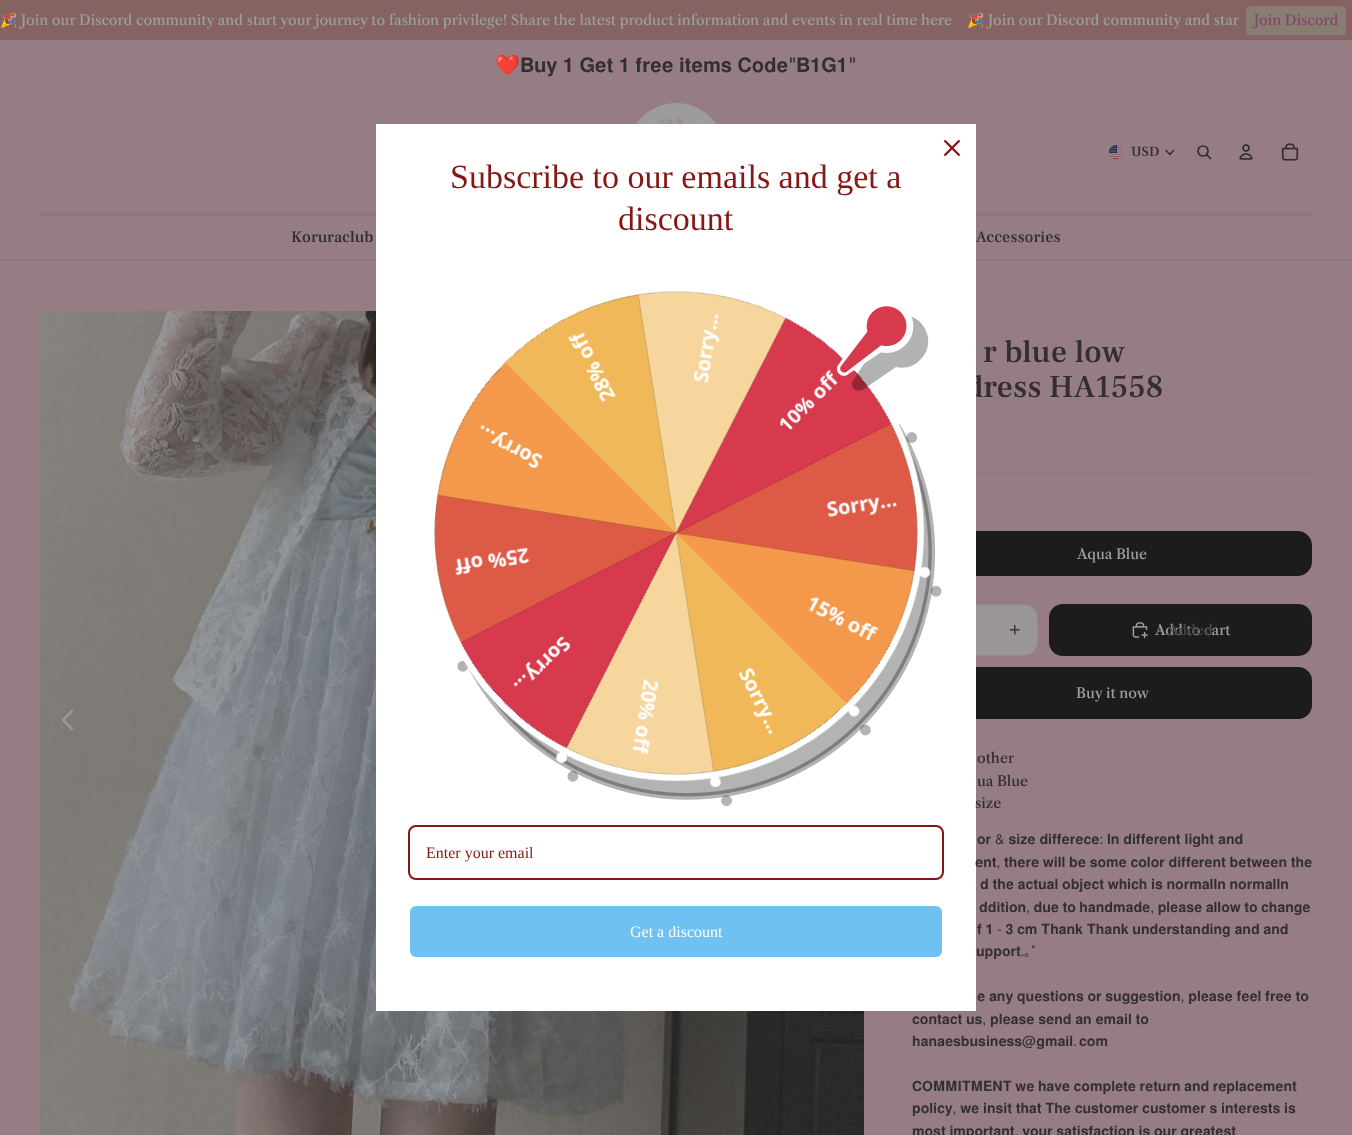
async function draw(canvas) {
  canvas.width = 1352;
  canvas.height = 1135;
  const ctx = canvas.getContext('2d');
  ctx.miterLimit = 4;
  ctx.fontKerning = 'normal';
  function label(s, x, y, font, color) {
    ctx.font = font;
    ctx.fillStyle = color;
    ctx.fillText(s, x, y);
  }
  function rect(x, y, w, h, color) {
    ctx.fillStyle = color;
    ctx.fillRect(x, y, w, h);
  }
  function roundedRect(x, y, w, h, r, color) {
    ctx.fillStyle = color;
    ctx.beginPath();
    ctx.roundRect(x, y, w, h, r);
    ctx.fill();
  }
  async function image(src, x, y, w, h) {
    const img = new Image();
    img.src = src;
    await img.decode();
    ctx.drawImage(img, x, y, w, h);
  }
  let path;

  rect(0, 0, 1352, 1135, '#957d83');
  rect(0, 0, 1352, 40, '#856363');
  label('🎉', 0, 25, '14px "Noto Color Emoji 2"', '#9c9c9c');
  label('Join our Discord community and start your journey to fashion privilege! Share the latest product information and events in real time here', 21, 25, '500 14px Libre Caslon Text', '#9c9c9c');
  label('🎉', 967, 25, '14px "Noto Color Emoji 2"', '#9c9c9c');
  label('Join our Discord community and star', 988, 25, '500 14px Libre Caslon Text', '#9c9c9c');
  roundedRect(1246, 6, 100, 29, 4, '#897c73');
  label('Join Discord', 1254, 25, '500 14px Libre Caslon Text', '#81496a');
  rect(0, 90, 1352, 1, '#8e777d');
  label('❤️', 495, 72, '20px Noto Color Emoji', '#332f30');
  ctx.wordSpacing = '0.5px';
  label('𝐁𝐮𝐲 𝟏 𝐆𝐞𝐭 𝟏 𝐟𝐫𝐞𝐞 𝐢𝐭𝐞𝐦𝐬 𝐂𝐨𝐝𝐞', 520, 72, '20px FreeSans', '#332f30');
  ctx.wordSpacing = '0px';
  label('"', 788, 72, '20px Inter', '#332f30');
  label('𝐁𝟏𝐆𝟏', 796, 72, '20px FreeSans', '#332f30');
  label('"', 848, 72, '20px Inter', '#332f30');
  rect(40, 213, 1272, 3, '#8e777d');
  await image('assets/img1.png', 636, 103, 80, 21);
  await image('assets/img2.png', 1109, 145, 14, 14);
  label('USD', 1131, 156, '500 14px Frank Ruhl Libre', '#332f30');
  path = new Path2D('M1173.5 150.5L1170 154.5L1166 150.5');
  ctx.strokeStyle = '#332f30';
  ctx.lineWidth = 1.5;
  ctx.lineCap = 'round';
  ctx.lineJoin = 'round';
  ctx.stroke(path);
  ctx.beginPath();
  ctx.arc(1203, 151, 5, 0, 2 * Math.PI);
  ctx.lineWidth = 1.7;
  ctx.stroke();
  path = new Path2D('M1207 155L1210.5 158.5');
  ctx.strokeStyle = '#1c1c1ccf';
  ctx.stroke(path);
  await image('assets/img3.png', 1239, 144, 14, 16);
  await image('assets/img4.png', 1281, 143, 18, 18);
  rect(0, 259, 1352, 2, '#8e777d');
  label('Koruraclub', 291, 242, '500 16px Frank Ruhl Libre', '#332f30');
  label('Accessories', 976, 242, '500 16px Frank Ruhl Libre', '#332f30');
  await image('assets/img9.png', 40, 311, 824, 824);
  label('dress HA1558', 965, 397, '500 32px Frank Ruhl Libre', '#332f30');
  ctx.fillStyle = '#8e777d';
  path = new Path2D('M1312 472V473L1311 472Z');
  ctx.fill(path);
  ctx.fillStyle = '#1c1c1c0f';
  path = new Path2D('M1312 473H912V472H1311Z');
  ctx.fill(path);
  ctx.fillStyle = '#1c1c1c';
  ctx.beginPath();
  ctx.roundRect(912.5, 531.5, 399, 44, 13.5);
  ctx.fill();
  ctx.strokeStyle = '#1c1c1c';
  ctx.lineWidth = 1;
  ctx.lineJoin = 'miter';
  ctx.stroke();
  ctx.fillStyle = '#9a9596';
  ctx.beginPath();
  ctx.roundRect(912.5, 604.5, 125, 51, 13.5);
  ctx.fill();
  ctx.strokeStyle = '#8c8c8c';
  ctx.stroke();
  roundedRect(912, 667, 400, 52, 14, '#1c1c1c');
  rect(376, 124, 600, 887, '#fff');
  await image('assets/img5.png', 944, 140, 16, 16);
  label('Subscribe to our emails and get a', 450, 188, '34px Liberation Serif', '#871716');
  label('discount', 618, 230, '34px Liberation Serif', '#871716');
  await image('assets/img8.png', 457, 322, 485, 484);
  await image('assets/img6.png', 433, 291, 498, 497);
  ctx.fillStyle = '#0000004d';
  path = new Path2D('M920 360C914 367 904 369 896 367L864 389C861 391 856 391 854 389C851 386 851 382 854 379L875 347C873 340 875 332 879 326L886 319C897 312 911 313 920 322C931 333 931 350 920 360Z');
  ctx.fill(path);
  await image('assets/img7.png', 836, 306, 78, 70);
  ctx.beginPath();
  ctx.roundRect(409, 826, 534, 53, 7);
  ctx.strokeStyle = '#871716';
  ctx.lineWidth = 2;
  ctx.stroke();
  label('Enter your email', 426, 858, '16px Liberation Serif', '#871716');
  ctx.fillStyle = '#6fc1f1';
  ctx.beginPath();
  ctx.roundRect(409, 905, 534, 53, 7);
  ctx.fill();
  ctx.strokeStyle = '#fff';
  ctx.stroke();
  label('Get a discount', 630, 937, '16px Liberation Serif', '#fff');
  path = new Path2D('M72 711L63 720L72 729');
  ctx.strokeStyle = '#9c9c9c';
  ctx.lineWidth = 2.3;
  ctx.lineJoin = 'round';
  ctx.stroke(path);
  label('r blue low', 983, 362, '500 32px Frank Ruhl Libre', '#332f30');
  label('Aqua Blue', 1077, 559, '500 14px Libre Caslon Text', '#9c9c9c');
  await image('assets/img10.png', 1009, 624, 11, 11);
  roundedRect(1049, 604, 263, 52, 14, '#1c1c1c');
  await image('assets/img11.png', 1132, 622, 16, 17);
  label('Add to cart', 1155, 635, '500 14px Libre Caslon Text', '#9c9c9c');
  label('Added', 1168, 635, '500 14px Libre Caslon Text', '#454545');
  label('Buy it now', 1076, 698, '500 14px Libre Caslon Text', '#9c9c9c');
  label('other', 977, 763, '500 14px Libre Caslon Text', '#332f30');
  label('ua Blue', 977, 786, '500 14px Libre Caslon Text', '#332f30');
  label('size', 975, 808, '500 14px Libre Caslon Text', '#332f30');
  ctx.wordSpacing = '0.5px';
  label('𝐨𝐫 & 𝐬𝐢𝐳𝐞 𝐝𝐢𝐟𝐟𝐞𝐫𝐞𝐜𝐞: 𝐥𝐧 𝐝𝐢𝐟𝐟𝐞𝐫𝐞𝐧𝐭 𝐥𝐢𝐠𝐡𝐭 𝐚𝐧𝐝', 977, 844, '14px FreeSans', '#332f30');
  ctx.wordSpacing = '0.25px';
  label('𝐞𝐧𝐭, 𝐭𝐡𝐞𝐫𝐞 𝐰𝐢𝐥𝐥 𝐛𝐞 𝐬𝐨𝐦𝐞 𝐜𝐨𝐥𝐨𝐫 𝐝𝐢𝐟𝐟𝐞𝐫𝐞𝐧𝐭 𝐛𝐞𝐭𝐰𝐞𝐞𝐧 𝐭𝐡𝐞', 975, 867, '14px FreeSans', '#332f30');
  label('𝐝 𝐭𝐡𝐞 𝐚𝐜𝐭𝐮𝐚𝐥 𝐨𝐛𝐣𝐞𝐜𝐭 𝐰𝐡𝐢𝐜𝐡 𝐢𝐬 𝐧𝐨𝐫𝐦𝐚𝐥𝐥𝐧 𝐧𝐨𝐫𝐦𝐚𝐥𝐥𝐧', 980, 889, '14px FreeSans', '#332f30');
  ctx.wordSpacing = '0px';
  label('𝐝𝐝𝐢𝐭𝐢𝐨𝐧, 𝐝𝐮𝐞 𝐭𝐨 𝐡𝐚𝐧𝐝𝐦𝐚𝐝𝐞, 𝐩𝐥𝐞𝐚𝐬𝐞 𝐚𝐥𝐥𝐨𝐰 𝐭𝐨 𝐜𝐡𝐚𝐧𝐠𝐞', 979, 912, '14px FreeSans', '#332f30');
  ctx.wordSpacing = '0.25px';
  label('𝐟 𝟏 - 𝟑 𝐜𝐦 𝐓𝐡𝐚𝐧𝐤 𝐓𝐡𝐚𝐧𝐤 𝐮𝐧𝐝𝐞𝐫𝐬𝐭𝐚𝐧𝐝𝐢𝐧𝐠 𝐚𝐧𝐝 𝐚𝐧𝐝', 977, 934, '14px FreeSans', '#332f30');
  ctx.wordSpacing = '0px';
  label('𝐮𝐩𝐩𝐨𝐫𝐭.', 976, 956, '14px FreeSans', '#332f30');
  label('｡', 1024, 956, '14px IPAGothic', '#332f30');
  label('˚', 1031, 956, '14px FreeSans', '#332f30');
  ctx.wordSpacing = '0.25px';
  label('𝐞 𝐚𝐧𝐲 𝐪𝐮𝐞𝐬𝐭𝐢𝐨𝐧𝐬 𝐨𝐫 𝐬𝐮𝐠𝐠𝐞𝐬𝐭𝐢𝐨𝐧, 𝐩𝐥𝐞𝐚𝐬𝐞 𝐟𝐞𝐞𝐥 𝐟𝐫𝐞𝐞 𝐭𝐨', 977, 1001, '14px FreeSans', '#332f30');
  label('𝐜𝐨𝐧𝐭𝐚𝐜𝐭 𝐮𝐬, 𝐩𝐥𝐞𝐚𝐬𝐞 𝐬𝐞𝐧𝐝 𝐚𝐧 𝐞𝐦𝐚𝐢𝐥 𝐭𝐨', 912, 1024, '14px FreeSans', '#332f30');
  ctx.wordSpacing = '-1px';
  label('𝐡𝐚𝐧𝐚𝐞𝐬𝐛𝐮𝐬𝐢𝐧𝐞𝐬𝐬@𝐠𝐦𝐚𝐢𝐥. 𝐜𝐨𝐦', 912, 1046, '14px FreeSans', '#332f30');
  ctx.wordSpacing = '0px';
  label('𝐂𝐎𝐌𝐌𝐈𝐓𝐌𝐄𝐍𝐓 𝐰𝐞 𝐡𝐚𝐯𝐞 𝐜𝐨𝐦𝐩𝐥𝐞𝐭𝐞 𝐫𝐞𝐭𝐮𝐫𝐧 𝐚𝐧𝐝 𝐫𝐞𝐩𝐥𝐚𝐜𝐞𝐦𝐞𝐧𝐭', 912, 1091, '14px FreeSans', '#332f30');
  ctx.wordSpacing = '0.25px';
  label('𝐩𝐨𝐥𝐢𝐜𝐲, 𝐰𝐞 𝐢𝐧𝐬𝐢𝐭 𝐭𝐡𝐚𝐭 𝐓𝐡𝐞 𝐜𝐮𝐬𝐭𝐨𝐦𝐞𝐫 𝐜𝐮𝐬𝐭𝐨𝐦𝐞𝐫 𝐬 𝐢𝐧𝐭𝐞𝐫𝐞𝐬𝐭𝐬 𝐢𝐬', 912, 1113, '14px FreeSans', '#332f30');
  label('𝐦𝐨𝐬𝐭 𝐢𝐦𝐩𝐨𝐫𝐭𝐚𝐧𝐭, 𝐲𝐨𝐮𝐫 𝐬𝐚𝐭𝐢𝐬𝐟𝐚𝐜𝐭𝐢𝐨𝐧 𝐢𝐬 𝐨𝐮𝐫 𝐠𝐫𝐞𝐚𝐭𝐞𝐬𝐭', 912, 1136, '14px FreeSans', '#332f30');
}

draw(document.querySelector('canvas'));
